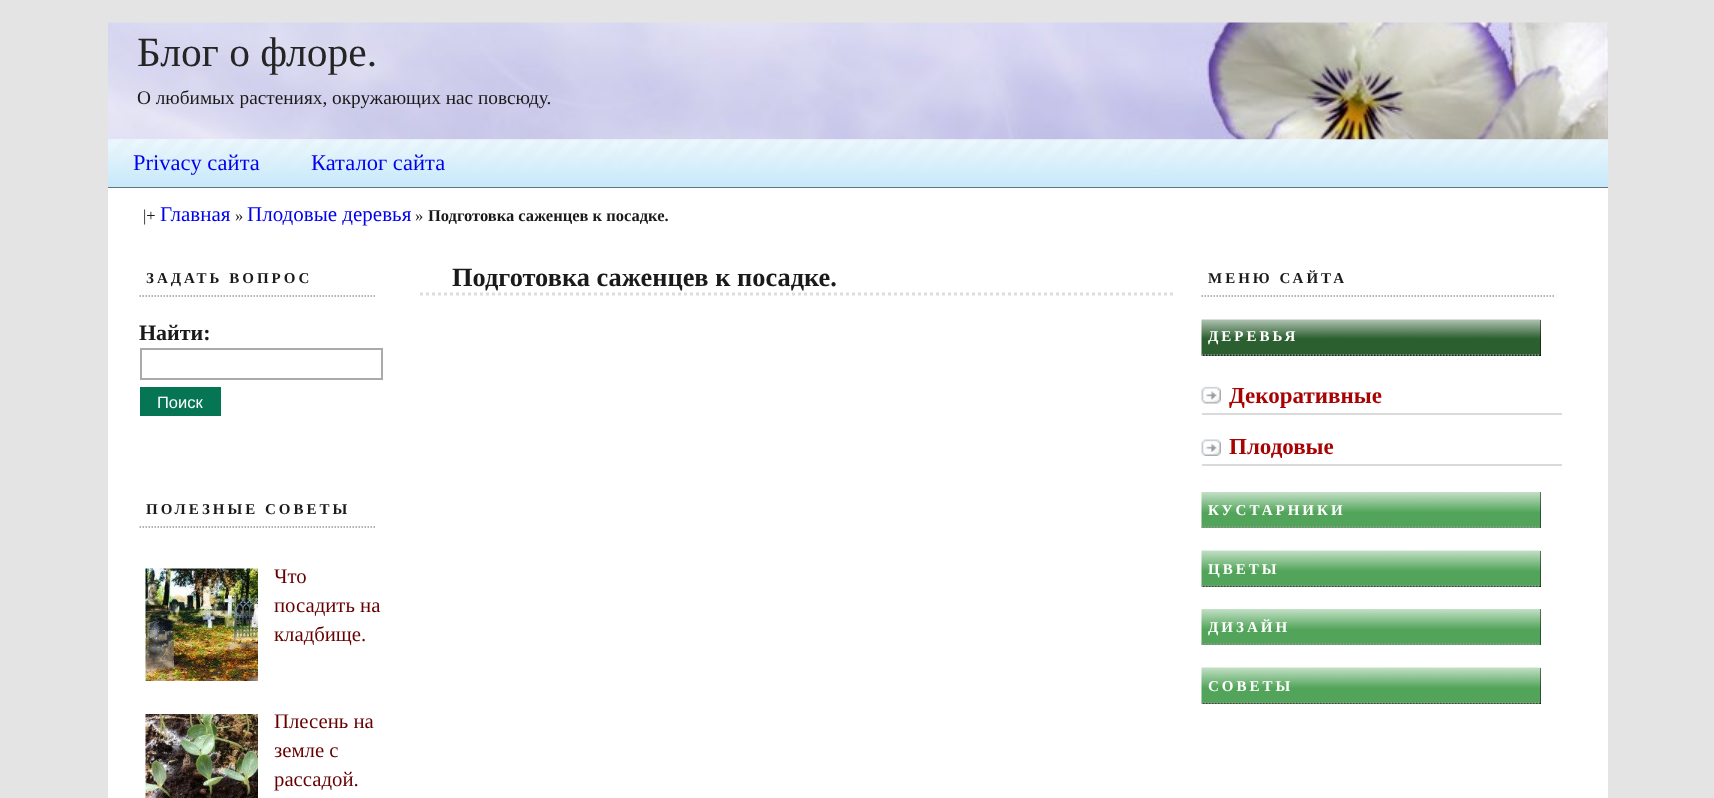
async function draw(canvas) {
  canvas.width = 1714;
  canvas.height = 798;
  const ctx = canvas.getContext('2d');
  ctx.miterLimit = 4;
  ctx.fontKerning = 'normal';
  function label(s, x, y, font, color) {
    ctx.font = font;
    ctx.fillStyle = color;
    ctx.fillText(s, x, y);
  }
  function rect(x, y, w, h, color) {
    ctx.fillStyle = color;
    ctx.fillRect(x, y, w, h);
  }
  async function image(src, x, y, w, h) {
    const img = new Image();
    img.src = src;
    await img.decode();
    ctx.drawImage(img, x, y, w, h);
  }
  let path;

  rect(0, 0, 1714, 798, '#e4e4e4');
  rect(108, 139, 1500, 659, '#fff');
  await image('assets/img1.png', 108, 22, 1500, 118);
  label('Блог о флоре.', 137, 66, '41.5px Liberation Serif', '#252525');
  label('О любимых растениях, окружающих нас повсюду.', 137, 104, '19.3px Liberation Serif', '#1a1a1a');
  rect(108, 187, 1500, 1, '#000');
  await image('assets/img2.png', 108, 139, 1500, 49);
  label('Privacy сайта', 133, 170, '22.5px Liberation Serif', '#00e');
  label('Каталог сайта', 311, 170, '22.5px Liberation Serif', '#00e');
  label('|+', 143, 221, '16.5px Liberation Serif', '#1a1a1a');
  label('Главная', 160, 221, '21px Liberation Serif', '#00e');
  label('»', 235, 221, '16.5px Liberation Serif', '#1a1a1a');
  label('Плодовые деревья', 247, 221, '21px Liberation Serif', '#00e');
  label('»', 415, 221, '16.5px Liberation Serif', '#1a1a1a');
  label('Подготовка саженцев к посадке.', 428, 221, 'bold 16.5px Liberation Serif', '#1a1a1a');
  path = new Path2D('M139.5 296H375');
  ctx.strokeStyle = '#999';
  ctx.lineWidth = 1.5;
  ctx.setLineDash([1.5, 1.5]);
  ctx.stroke(path);
  ctx.letterSpacing = '3px';
  label('ЗАДАТЬ ВОПРОС', 146, 283, 'bold 15px Liberation Serif', '#1a1a1a');
  ctx.letterSpacing = '0px';
  label('Найти:', 139, 340, 'bold 22px Liberation Serif', '#1a1a1a');
  ctx.strokeStyle = '#aaa';
  ctx.lineWidth = 2;
  ctx.setLineDash([]);
  ctx.strokeRect(141, 349, 241, 30);
  rect(140, 387, 81, 29, '#067554');
  label('Поиск', 157, 408, '16.5px Liberation Sans', '#fff');
  path = new Path2D('M139.5 527H375');
  ctx.strokeStyle = '#999';
  ctx.lineWidth = 1.5;
  ctx.setLineDash([1.5, 1.5]);
  ctx.stroke(path);
  ctx.letterSpacing = '3px';
  label('ПОЛЕЗНЫЕ СОВЕТЫ', 146, 514, 'bold 15px Liberation Serif', '#1a1a1a');
  await image('assets/img3.png', 145, 568, 113, 113);
  ctx.letterSpacing = '0px';
  label('Что', 274, 583, '20.75px Liberation Serif', '#600');
  label('посадить на', 274, 612, '20.75px Liberation Serif', '#600');
  label('кладбище.', 274, 641, '20.75px Liberation Serif', '#600');
  await image('assets/img4.png', 145, 714, 113, 84);
  label('Плесень на', 274, 728, '20.75px Liberation Serif', '#600');
  label('земле с', 274, 757, '20.75px Liberation Serif', '#600');
  label('рассадой.', 274, 786, '20.75px Liberation Serif', '#600');
  path = new Path2D('M420 294H1176');
  ctx.strokeStyle = '#ddd';
  ctx.lineWidth = 3;
  ctx.setLineDash([3, 3]);
  ctx.stroke(path);
  label('Подготовка саженцев к посадке.', 452, 286, 'bold 26.4px Liberation Serif', '#1a1a1a');
  path = new Path2D('M1201.5 296H1554');
  ctx.strokeStyle = '#999';
  ctx.lineWidth = 1.5;
  ctx.setLineDash([1.5, 1.5]);
  ctx.stroke(path);
  ctx.letterSpacing = '3px';
  label('МЕНЮ САЙТА', 1208, 283, 'bold 15px Liberation Serif', '#1a1a1a');
  rect(1202, 320, 339, 36, '#000');
  await image('assets/img5.png', 1201, 319, 340, 37);
  path = new Path2D('M1201.5 355H1540.5');
  ctx.stroke(path);
  label('ДЕРЕВЬЯ', 1208, 341, 'bold 15px Liberation Serif', '#fff');
  await image('assets/img6.png', 1201, 386, 20, 18);
  rect(1202, 413, 360, 2, '#dadada');
  ctx.letterSpacing = '0px';
  label('Декоративные', 1229, 403, 'bold 23px Liberation Serif', '#a70303');
  await image('assets/img7.png', 1201, 439, 20, 17);
  rect(1202, 464, 360, 2, '#dadada');
  label('Плодовые', 1229, 454, 'bold 23px Liberation Serif', '#a70303');
  rect(1540, 492, 1, 36, '#000');
  await image('assets/img8.png', 1201, 492, 340, 36);
  path = new Path2D('M1201.5 527H1540.5');
  ctx.stroke(path);
  ctx.letterSpacing = '3px';
  label('КУСТАРНИКИ', 1208, 515, 'bold 15px Liberation Serif', '#fff');
  rect(1202, 551, 339, 36, '#000');
  await image('assets/img9.png', 1201, 550, 340, 37);
  path = new Path2D('M1201.5 586H1540.5');
  ctx.stroke(path);
  label('ЦВЕТЫ', 1208, 574, 'bold 15px Liberation Serif', '#fff');
  rect(1540, 609, 1, 36, '#000');
  await image('assets/img10.png', 1201, 609, 340, 36);
  path = new Path2D('M1201.5 644H1540.5');
  ctx.stroke(path);
  label('ДИЗАЙН', 1208, 632, 'bold 15px Liberation Serif', '#fff');
  rect(1202, 668, 339, 36, '#000');
  await image('assets/img11.png', 1201, 667, 340, 37);
  path = new Path2D('M1201.5 703H1540.5');
  ctx.stroke(path);
  label('СОВЕТЫ', 1208, 691, 'bold 15px Liberation Serif', '#fff');
}

draw(document.querySelector('canvas'));
